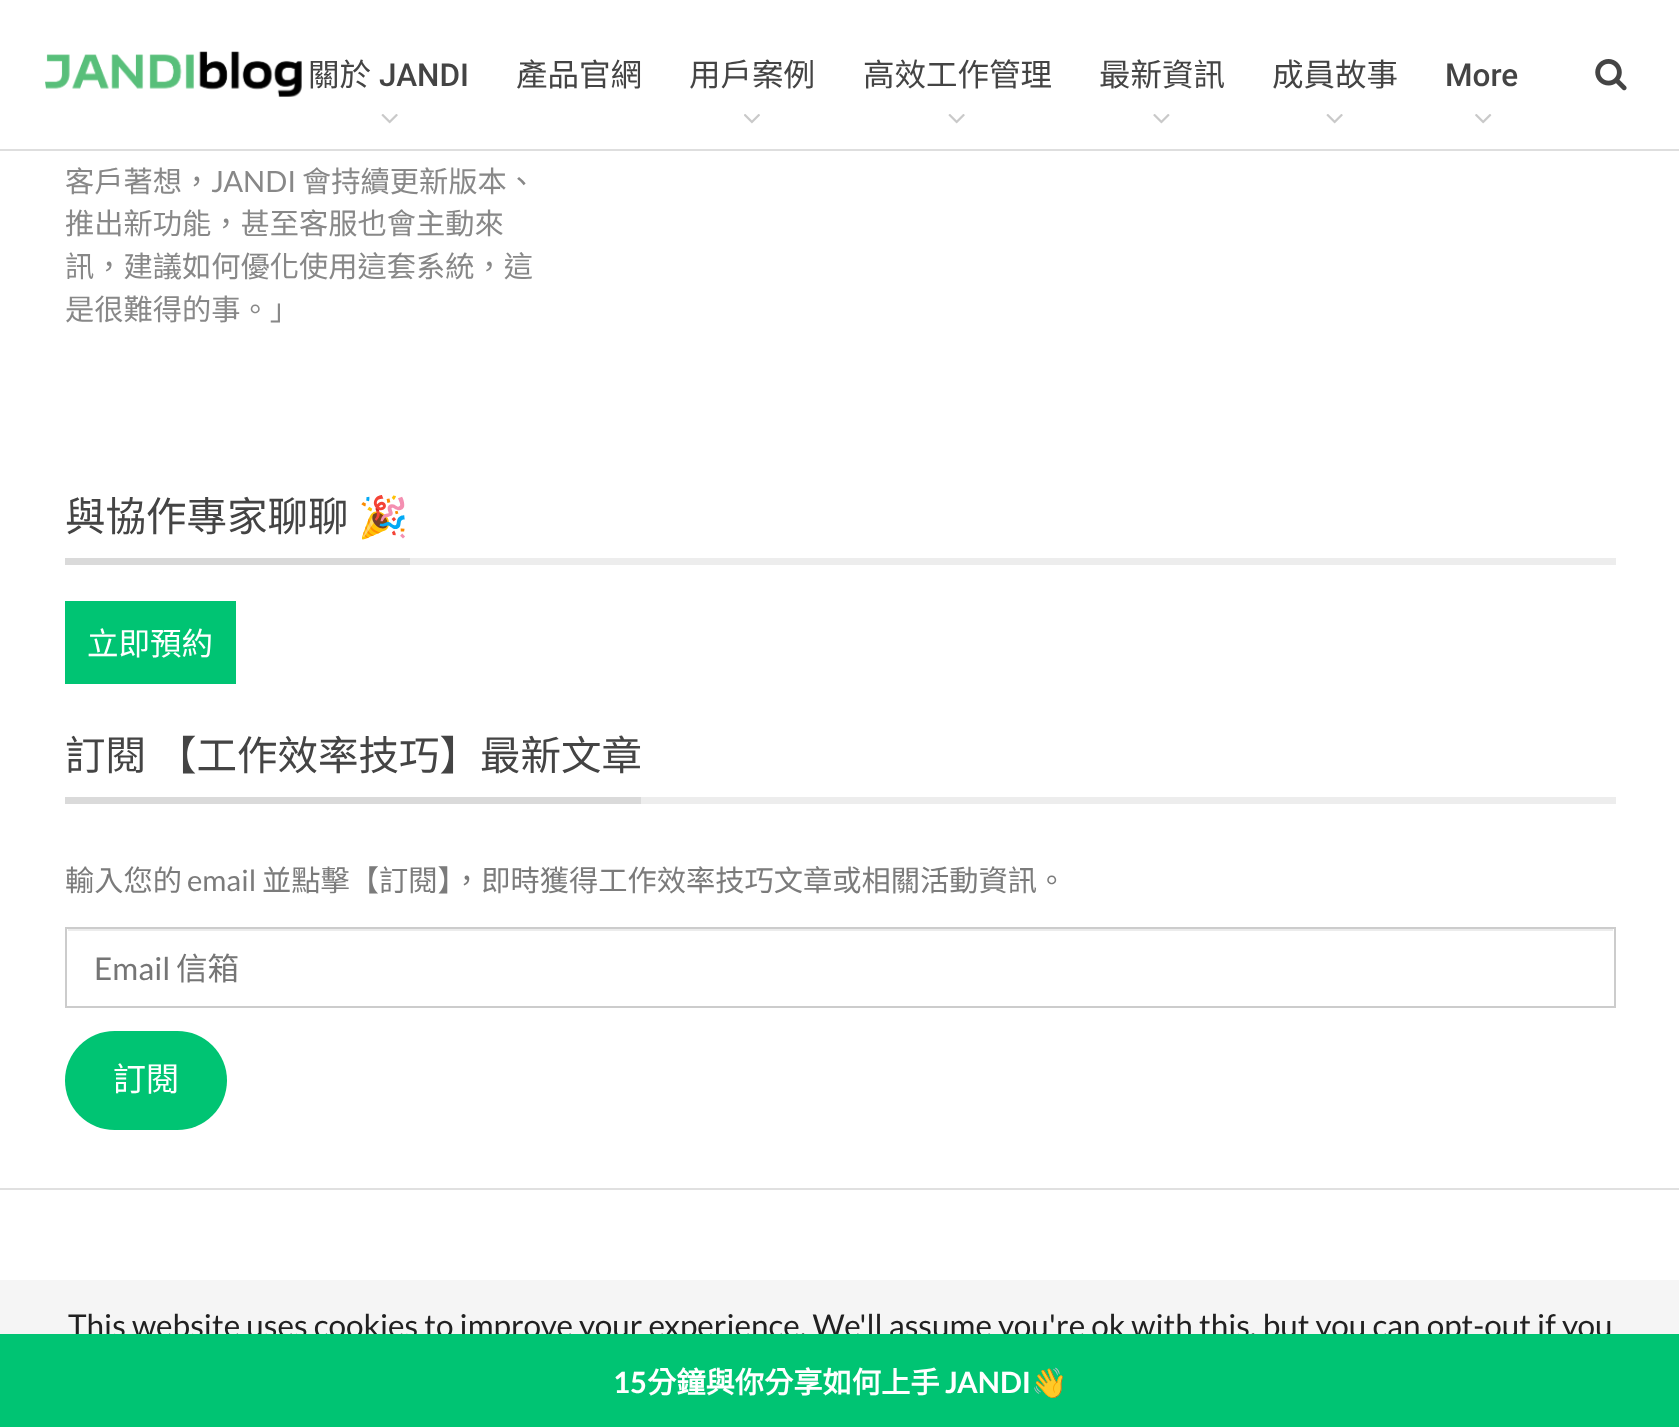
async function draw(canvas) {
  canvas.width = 1679;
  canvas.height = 1427;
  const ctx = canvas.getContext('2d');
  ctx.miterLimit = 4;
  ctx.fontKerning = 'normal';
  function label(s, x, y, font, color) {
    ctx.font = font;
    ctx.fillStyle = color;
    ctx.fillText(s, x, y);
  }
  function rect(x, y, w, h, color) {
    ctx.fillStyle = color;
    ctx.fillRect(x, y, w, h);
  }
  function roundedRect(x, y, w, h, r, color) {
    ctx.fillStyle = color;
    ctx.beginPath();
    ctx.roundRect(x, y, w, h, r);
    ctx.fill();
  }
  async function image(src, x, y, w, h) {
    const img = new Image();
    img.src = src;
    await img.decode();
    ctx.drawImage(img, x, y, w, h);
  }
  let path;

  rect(0, 0, 1679, 1427, '#fff');
  ctx.fillStyle = '#dedede';
  path = new Path2D('M0 148V151H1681V2V148Z');
  ctx.fill(path);
  rect(0, 148, 1679, 1, '#fff');
  await image('assets/img1.png', 45, 51, 257, 46);
  label('關於', 308, 86, '31.5px Noto Sans CJK TC', '#444');
  label('JANDI', 379, 86, '500 31.5px Roboto', '#444');
  await image('assets/img2.png', 381, 114, 17, 10);
  label('產品官網', 516, 86, '31.5px Noto Sans CJK TC', '#444');
  label('用戶案例', 689, 86, '31.5px Noto Sans CJK TC', '#444');
  await image('assets/img3.png', 744, 114, 16, 10);
  label('高效工作管理', 863, 86, '31.5px Noto Sans CJK TC', '#444');
  await image('assets/img2.png', 948, 114, 17, 10);
  label('最新資訊', 1099, 86, '31.5px Noto Sans CJK TC', '#444');
  await image('assets/img4.png', 1153, 114, 17, 10);
  label('成員故事', 1272, 86, '31.5px Noto Sans CJK TC', '#444');
  await image('assets/img2.png', 1326, 114, 17, 10);
  label('More', 1445, 86, '500 31.5px Roboto', '#444');
  await image('assets/img5.png', 1475, 114, 17, 10);
  await image('assets/img6.png', 1595, 59, 32, 32);
  label('客戶著想，', 65, 192, '29.25px Noto Sans CJK TC', '#888');
  label('JANDI', 211, 192, '29.25px Lato', '#888');
  label('會持續更新版本、', 302, 192, '29.25px Noto Sans CJK TC', '#888');
  label('推出新功能，甚至客服也會主動來', 65, 234, '29.25px Noto Sans CJK TC', '#888');
  label('訊，建議如何優化使用這套系統，這', 65, 277, '29.25px Noto Sans CJK TC', '#888');
  label('是很難得的事。」', 65, 320, '29.25px Noto Sans CJK TC', '#888');
  label('與協作專家聊聊', 65, 531, '40.5px Noto Sans CJK TC', '#444');
  label('🎉', 358, 531, '40.5px Noto Color Emoji', '#444');
  rect(65, 558, 345, 7, '#dadada');
  rect(410, 558, 1206, 7, '#ededed');
  rect(65, 601, 171, 83, '#00c473');
  label('立即預約', 87, 655, '31.5px Noto Sans CJK TC', '#fff');
  ctx.wordSpacing = '1px';
  label('訂閱 【工作效率技巧】最新文章', 65, 770, '40.5px Noto Sans CJK TC', '#444');
  rect(65, 797, 576, 7, '#dadada');
  rect(641, 797, 975, 7, '#ededed');
  ctx.wordSpacing = '0px';
  label('輸入您的', 65, 891, '29.25px Noto Sans CJK TC', '#7b7b7b');
  label('email', 187, 891, '29.25px Lato', '#7b7b7b');
  label('並點擊【訂閱】，即時獲得工作效率技巧文章或相關活動資訊。', 262, 891, '29.25px Noto Sans CJK TC', '#7b7b7b');
  rect(68, 929, 1545, 2, '#ececec');
  ctx.strokeStyle = '#ccc';
  ctx.lineWidth = 2;
  ctx.strokeRect(66, 928, 1549, 79);
  label('Email', 94, 980, '31.5px Lato', '#757575');
  label('信箱', 176, 980, '31.5px Noto Sans CJK TC', '#757575');
  roundedRect(65, 1031, 162, 99, 49.5, '#00c473');
  label('訂閱', 113, 1091, '33px Noto Sans CJK TC', '#fff');
  ctx.fillStyle = '#e0e0e0';
  path = new Path2D('M0 1188V1190H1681V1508V1188Z');
  ctx.fill(path);
  rect(0, 1280, 1679, 54, '#f5f5f5');
  label('This website uses cookies to improve your experience. We\'ll assume you\'re ok with this, but you can opt-out if you', 68, 1337, '31.5px Lato', '#212121');
  rect(0, 1334, 1679, 93, '#00c473');
  label('15', 613, 1393, 'bold 29.25px Lato', '#fff');
  label('分鐘與你分享如何上手', 647, 1393, 'bold 29.25px Noto Sans CJK TC', '#fff');
  label('JANDI', 945, 1393, 'bold 29.25px Lato', '#fff');
  label('👋', 1031, 1393, 'bold 29.25px Noto Color Emoji', '#fff');
}

draw(document.querySelector('canvas'));
